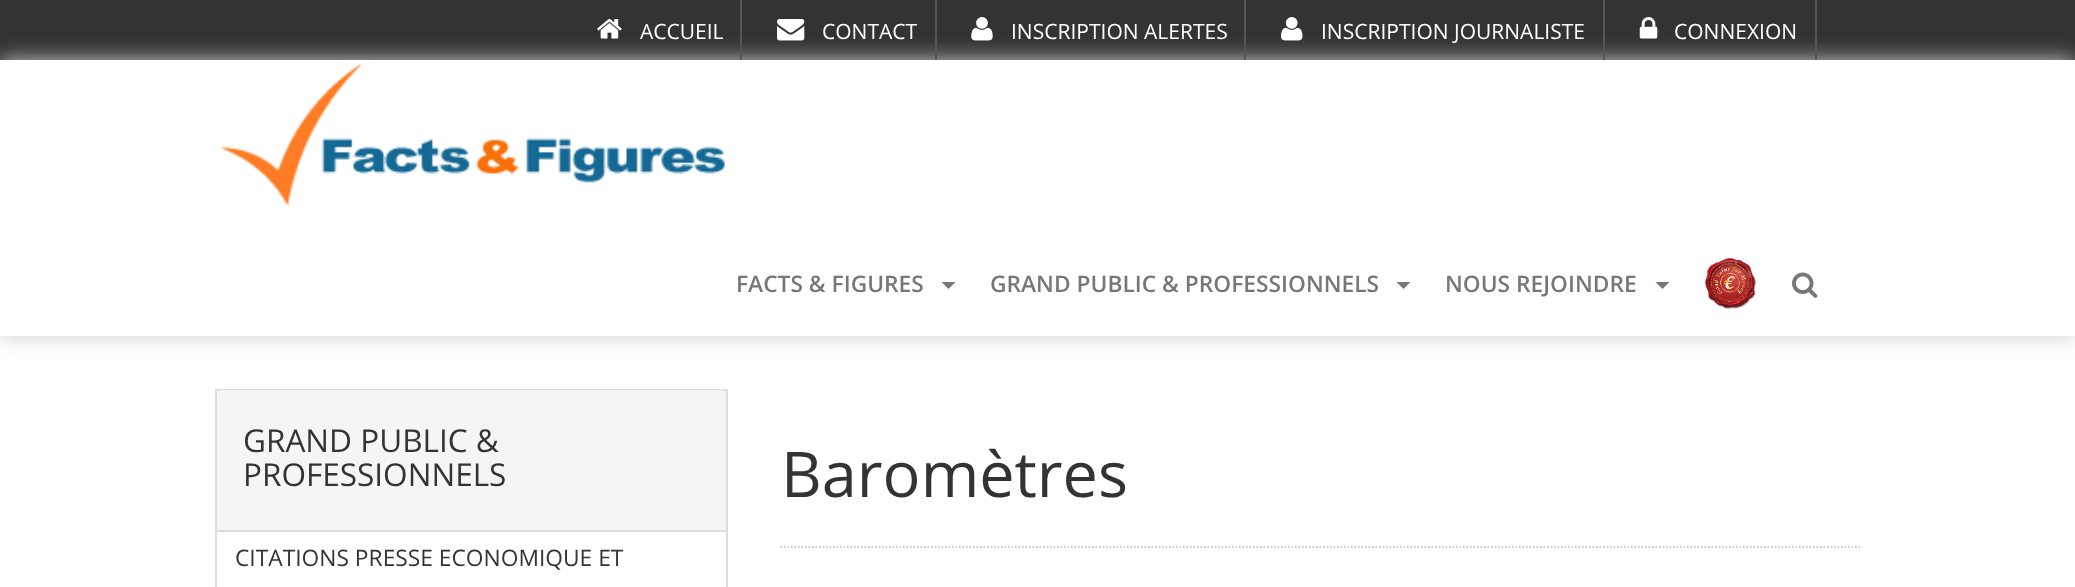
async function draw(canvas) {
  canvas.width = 2075;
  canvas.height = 587;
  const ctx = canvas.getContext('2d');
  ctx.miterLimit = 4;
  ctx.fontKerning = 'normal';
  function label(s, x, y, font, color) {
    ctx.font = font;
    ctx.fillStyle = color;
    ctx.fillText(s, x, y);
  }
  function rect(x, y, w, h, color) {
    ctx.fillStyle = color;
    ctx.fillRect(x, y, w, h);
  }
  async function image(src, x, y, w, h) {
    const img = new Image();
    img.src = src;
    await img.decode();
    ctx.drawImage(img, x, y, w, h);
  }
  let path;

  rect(0, 0, 2075, 587, '#fff');
  rect(0, 0, 2075, 60, '#333');
  ctx.save();
  path = new Path2D('M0 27H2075V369H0ZM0 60H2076V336H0Z');
  ctx.clip(path, 'evenodd');
  ctx.fillStyle = '#ccc';
  ctx.filter = 'blur(10.5px)';
  ctx.beginPath();
  ctx.rect(0, 60, 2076, 276);
  ctx.fill();
  ctx.filter = 'none';
  ctx.restore();
  rect(740, 0, 2, 60, '#555');
  await image('assets/img1.png', 597, 19, 25, 20);
  label('ACCUEIL', 640, 39, '21px Open Sans', '#fff');
  rect(935, 0, 2, 60, '#555');
  await image('assets/img2.png', 777, 19, 28, 22);
  label('CONTACT', 822, 39, '21px Open Sans', '#fff');
  rect(1244, 0, 2, 60, '#555');
  await image('assets/img3.png', 971, 17, 22, 24);
  label('INSCRIPTION ALERTES', 1011, 39, '21px Open Sans', '#fff');
  rect(1603, 0, 2, 60, '#555');
  await image('assets/img4.png', 1281, 17, 22, 24);
  label('INSCRIPTION JOURNALISTE', 1321, 39, '21px Open Sans', '#fff');
  rect(1815, 0, 2, 60, '#555');
  await image('assets/img5.png', 1639, 17, 19, 22);
  label('CONNEXION', 1674, 39, '21px Open Sans', '#fff');
  await image('assets/img6.png', 220, 64, 505, 141);
  label('FACTS & FIGURES', 736, 292, '600 22.75px Open Sans', '#777');
  path = new Path2D('M941.5 282H955.5L948.5 289Z');
  ctx.fill(path);
  label('GRAND PUBLIC & PROFESSIONNELS', 990, 292, '600 22.75px Open Sans', '#777');
  path = new Path2D('M1396.5 282H1410.5L1403.5 289Z');
  ctx.fill(path);
  label('NOUS REJOINDRE', 1445, 292, '600 22.75px Open Sans', '#777');
  path = new Path2D('M1655.5 282H1669.5L1662.5 289Z');
  ctx.fill(path);
  await image('assets/img7.png', 1705, 258, 52, 51);
  await image('assets/img8.png', 1792, 272, 26, 26);
  ctx.strokeStyle = '#ddd';
  ctx.lineWidth = 2;
  ctx.strokeRect(216, 390, 511, 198);
  ctx.fillStyle = '#f5f5f5';
  ctx.beginPath();
  ctx.roundRect(217, 390, 509, 142, [5, 5, 0, 0]);
  ctx.fill();
  rect(217, 530, 509, 2, '#ddd');
  label('GRAND PUBLIC &', 243, 452, '31.5px Open Sans', '#333');
  label('PROFESSIONNELS', 243, 486, '31.5px Open Sans', '#333');
  label('CITATIONS PRESSE ECONOMIQUE ET', 235, 566, '22.75px Open Sans', '#333');
  label('Baromètres', 781, 497, '63px Open Sans', '#333');
  path = new Path2D('M780.5 547H1860');
  ctx.strokeStyle = '#ccc';
  ctx.lineWidth = 1.8;
  ctx.setLineDash([1.75, 1.75]);
  ctx.stroke(path);
}

draw(document.querySelector('canvas'));
